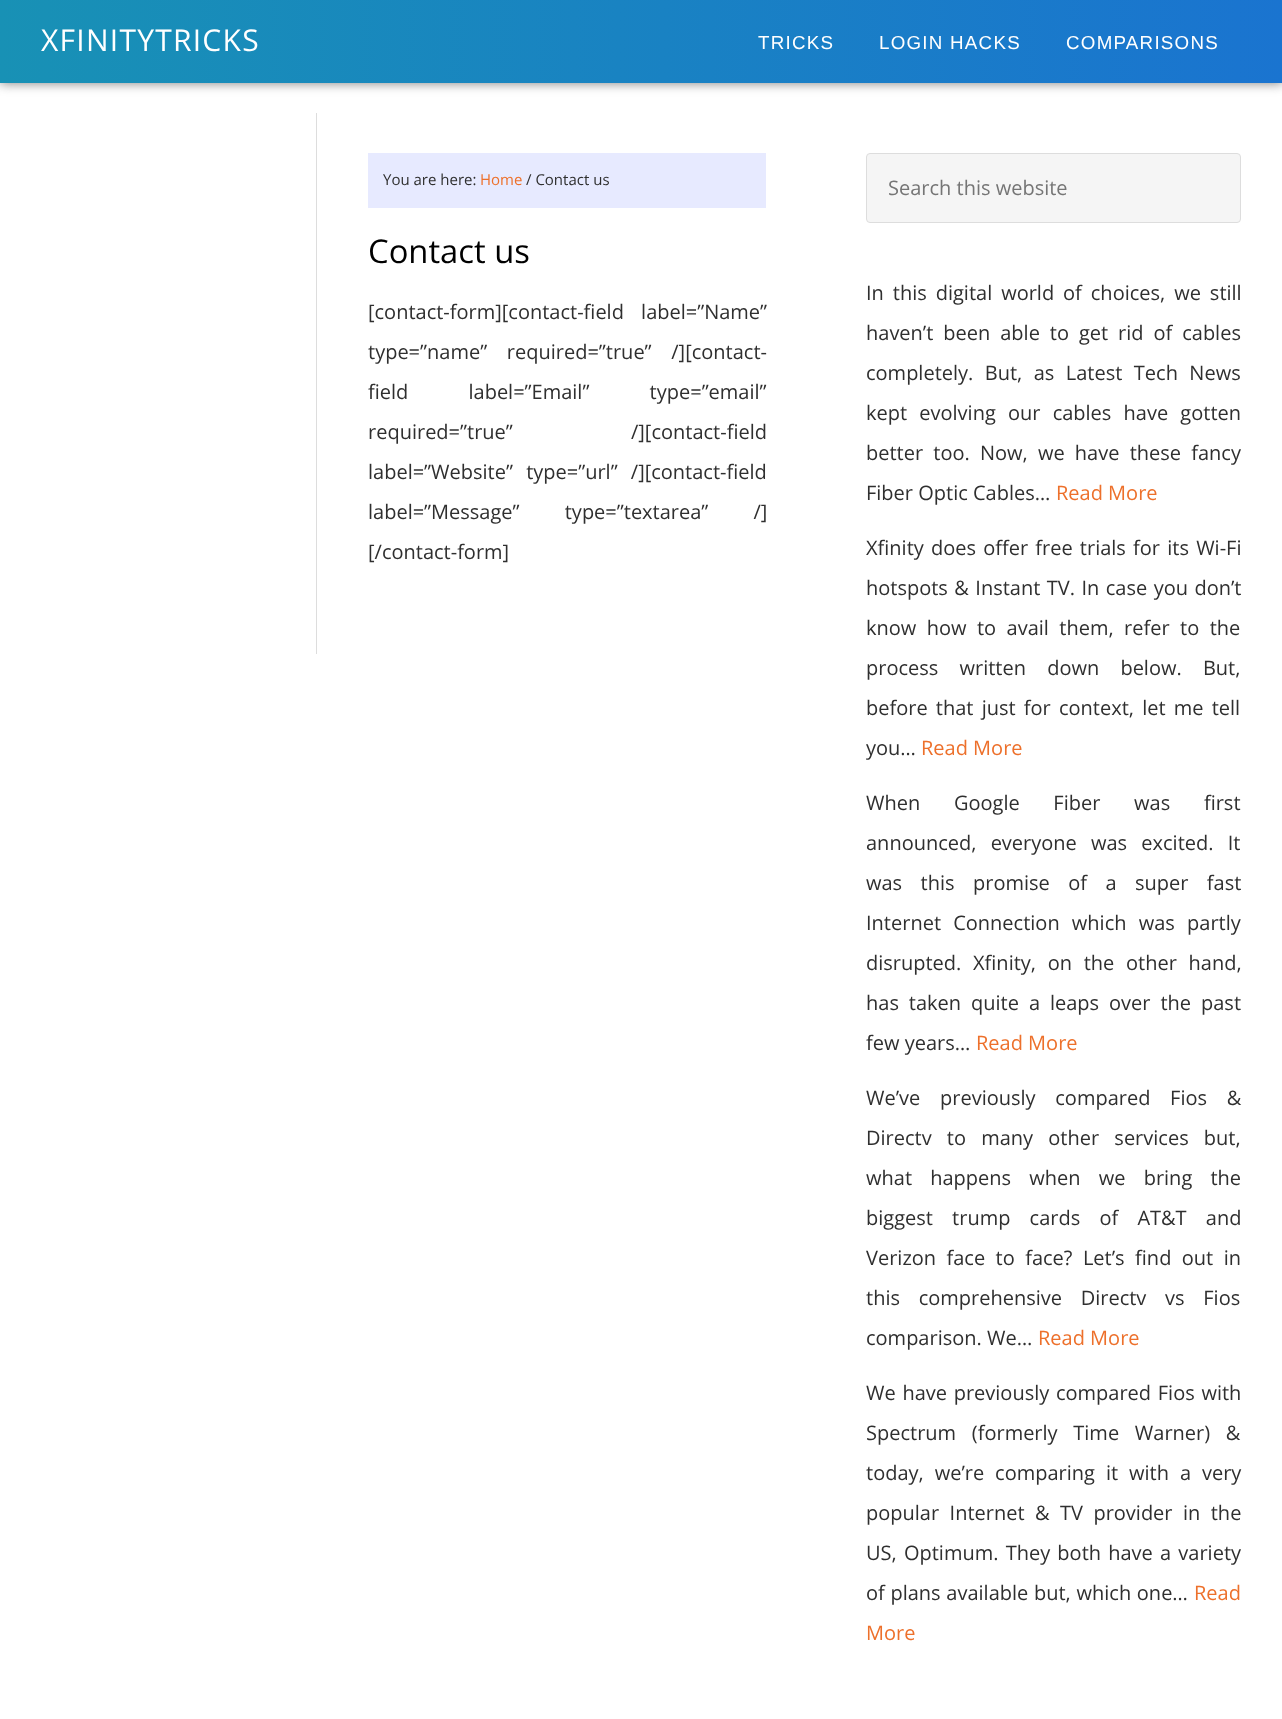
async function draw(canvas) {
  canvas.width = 1282;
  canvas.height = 1719;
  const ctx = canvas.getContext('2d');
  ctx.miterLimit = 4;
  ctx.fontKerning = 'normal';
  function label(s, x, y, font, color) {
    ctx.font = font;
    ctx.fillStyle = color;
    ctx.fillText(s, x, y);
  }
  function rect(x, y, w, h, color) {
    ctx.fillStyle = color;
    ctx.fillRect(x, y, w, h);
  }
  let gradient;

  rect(0, 0, 1282, 1719, '#fff');
  ctx.fillStyle = '#525252c2';
  ctx.filter = 'blur(6px)';
  ctx.beginPath();
  ctx.rect(0, 0, 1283, 83);
  ctx.fill();
  ctx.filter = 'none';
  gradient = ctx.createLinearGradient(0, 41, 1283, 41);
  gradient.addColorStop(0, '#1891b5');
  gradient.addColorStop(1, '#1a74d0');
  ctx.fillStyle = gradient;
  ctx.fillRect(0, 0, 1282, 83);
  ctx.letterSpacing = '1.25px';
  label('XFINITYTRICKS', 41, 51, '30px Open Sans', '#fff');
  label('TRICKS', 758, 49, '18.75px Liberation Sans', '#fff');
  label('LOGIN HACKS', 879, 49, '18.75px Liberation Sans', '#fff');
  label('COMPARISONS', 1066, 49, '18.75px Liberation Sans', '#fff');
  rect(316, 113, 1, 541, '#ddd');
  rect(368, 153, 398, 55, '#e7eaff');
  ctx.letterSpacing = '0px';
  label('You are here:', 383, 185, '15px Open Sans', '#2f2f2f');
  label('Home', 480, 185, '15px Open Sans', '#ed702b');
  label('/ Contact us', 526, 185, '15px Open Sans', '#2f2f2f');
  label('Contact us', 368, 263, '32.75px Open Sans', '#000');
  ctx.wordSpacing = '12px';
  label('[contact-form][contact-field label=”Name”', 368, 319, '20px Open Sans', '#2f2f2f');
  ctx.wordSpacing = '14.5px';
  label('type=”name” required=”true” /][contact-', 368, 359, '20px Open Sans', '#2f2f2f');
  ctx.wordSpacing = '55px';
  label('field label=”Email” type=”email”', 368, 399, '20px Open Sans', '#2f2f2f');
  ctx.wordSpacing = '113px';
  label('required=”true” /][contact-field', 368, 439, '20px Open Sans', '#2f2f2f');
  ctx.wordSpacing = '8px';
  label('label=”Website” type=”url” /][contact-field', 368, 479, '20px Open Sans', '#2f2f2f');
  ctx.wordSpacing = '40px';
  label('label=”Message” type=”textarea” /]', 368, 519, '20px Open Sans', '#2f2f2f');
  ctx.wordSpacing = '0px';
  label('[/contact-form]', 368, 559, '20px Open Sans', '#2f2f2f');
  ctx.fillStyle = '#f5f5f5';
  ctx.beginPath();
  ctx.roundRect(866.5, 153.5, 374, 69, 3.5);
  ctx.fill();
  ctx.strokeStyle = '#ddd';
  ctx.stroke();
  label('Search this website', 888, 195, '20px Open Sans', '#757575');
  ctx.wordSpacing = '3.75px';
  label('In this digital world of choices, we still', 866, 300, '20px Open Sans', '#2f2f2f');
  ctx.wordSpacing = '4.75px';
  label('haven’t been able to get rid of cables', 866, 340, '20px Open Sans', '#2f2f2f');
  ctx.wordSpacing = '6.25px';
  label('completely. But, as Latest Tech News', 866, 380, '20px Open Sans', '#2f2f2f');
  ctx.wordSpacing = '7px';
  label('kept evolving our cables have gotten', 866, 420, '20px Open Sans', '#2f2f2f');
  ctx.wordSpacing = '5px';
  label('better too. Now, we have these fancy', 866, 460, '20px Open Sans', '#2f2f2f');
  ctx.wordSpacing = '0px';
  label('Fiber Optic Cables…', 866, 500, '20px Open Sans', '#2f2f2f');
  label('Read More', 1056, 500, '20px Open Sans', '#ed702b');
  ctx.wordSpacing = '2px';
  label('Xfinity does offer free trials for its Wi-Fi', 866, 555, '20px Open Sans', '#2f2f2f');
  ctx.wordSpacing = '1.25px';
  label('hotspots & Instant TV. In case you don’t', 866, 595, '20px Open Sans', '#2f2f2f');
  ctx.wordSpacing = '5.25px';
  label('know how to avail them, refer to the', 866, 635, '20px Open Sans', '#2f2f2f');
  ctx.wordSpacing = '16px';
  label('process written down below. But,', 866, 675, '20px Open Sans', '#2f2f2f');
  ctx.wordSpacing = '3px';
  label('before that just for context, let me tell', 866, 715, '20px Open Sans', '#2f2f2f');
  ctx.wordSpacing = '0px';
  label('you…', 866, 755, '20px Open Sans', '#2f2f2f');
  label('Read More', 921, 755, '20px Open Sans', '#ed702b');
  ctx.wordSpacing = '28.5px';
  label('When Google Fiber was first', 866, 810, '20px Open Sans', '#2f2f2f');
  ctx.wordSpacing = '9px';
  label('announced, everyone was excited. It', 866, 850, '20px Open Sans', '#2f2f2f');
  ctx.wordSpacing = '13.25px';
  label('was this promise of a super fast', 866, 890, '20px Open Sans', '#2f2f2f');
  ctx.wordSpacing = '7px';
  label('Internet Connection which was partly', 866, 930, '20px Open Sans', '#2f2f2f');
  ctx.wordSpacing = '6.5px';
  label('disrupted. Xfinity, on the other hand,', 866, 970, '20px Open Sans', '#2f2f2f');
  ctx.wordSpacing = '4.75px';
  label('has taken quite a leaps over the past', 866, 1010, '20px Open Sans', '#2f2f2f');
  ctx.wordSpacing = '0px';
  label('few years…', 866, 1050, '20px Open Sans', '#2f2f2f');
  label('Read More', 976, 1050, '20px Open Sans', '#ed702b');
  ctx.wordSpacing = '14.5px';
  label('We’ve previously compared Fios &', 866, 1105, '20px Open Sans', '#2f2f2f');
  ctx.wordSpacing = '10px';
  label('Directv to many other services but,', 866, 1145, '20px Open Sans', '#2f2f2f');
  ctx.wordSpacing = '13px';
  label('what happens when we bring the', 866, 1185, '20px Open Sans', '#2f2f2f');
  ctx.wordSpacing = '14px';
  label('biggest trump cards of AT&T and', 866, 1225, '20px Open Sans', '#2f2f2f');
  ctx.wordSpacing = '5.25px';
  label('Verizon face to face? Let’s find out in', 866, 1265, '20px Open Sans', '#2f2f2f');
  ctx.wordSpacing = '13.5px';
  label('this comprehensive Directv vs Fios', 866, 1305, '20px Open Sans', '#2f2f2f');
  ctx.wordSpacing = '0px';
  label('comparison. We…', 866, 1345, '20px Open Sans', '#2f2f2f');
  label('Read More', 1038, 1345, '20px Open Sans', '#ed702b');
  ctx.wordSpacing = '1.5px';
  label('We have previously compared Fios with', 866, 1400, '20px Open Sans', '#2f2f2f');
  ctx.wordSpacing = '10.5px';
  label('Spectrum (formerly Time Warner) &', 866, 1440, '20px Open Sans', '#2f2f2f');
  ctx.wordSpacing = '5.75px';
  label('today, we’re comparing it with a very', 866, 1480, '20px Open Sans', '#2f2f2f');
  ctx.wordSpacing = '5.25px';
  label('popular Internet & TV provider in the', 866, 1520, '20px Open Sans', '#2f2f2f');
  ctx.wordSpacing = '2px';
  label('US, Optimum. They both have a variety', 866, 1560, '20px Open Sans', '#2f2f2f');
  ctx.wordSpacing = '0.5px';
  label('of plans available but, which one…', 866, 1600, '20px Open Sans', '#2f2f2f');
  ctx.wordSpacing = '0px';
  label('Read', 1194, 1600, '20px Open Sans', '#ed702b');
  label('More', 866, 1640, '20px Open Sans', '#ed702b');
}

draw(document.querySelector('canvas'));
